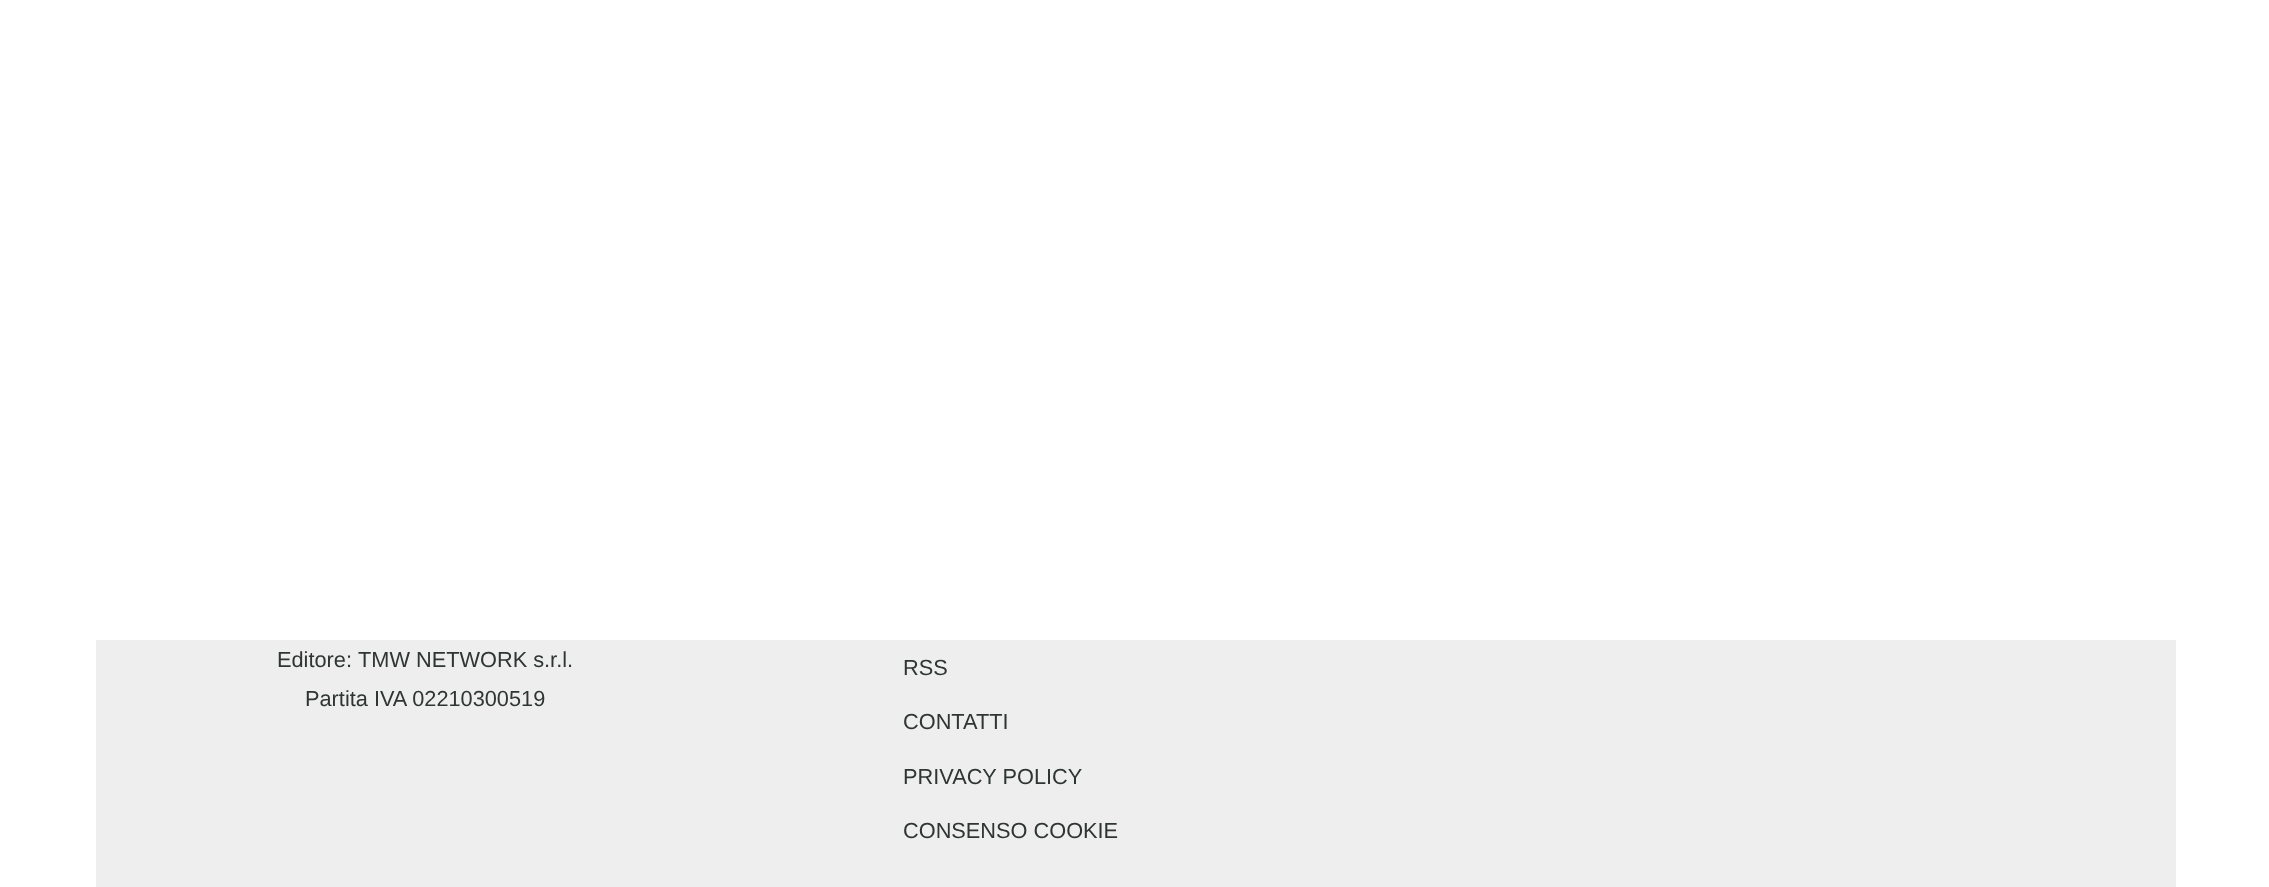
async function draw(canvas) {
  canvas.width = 2269;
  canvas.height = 887;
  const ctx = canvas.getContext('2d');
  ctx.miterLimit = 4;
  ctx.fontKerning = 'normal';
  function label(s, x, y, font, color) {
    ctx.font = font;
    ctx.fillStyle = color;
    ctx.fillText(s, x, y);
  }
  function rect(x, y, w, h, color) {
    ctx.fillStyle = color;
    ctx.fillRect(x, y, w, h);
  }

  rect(0, 0, 2269, 887, '#fff');
  rect(96, 640, 2080, 247, '#eee');
  label('Editore:', 277, 667, '21.75px Liberation Sans', '#2f3534');
  label('TMW NETWORK s.r.l.', 358, 667, '21.75px Liberation Sans', '#2f3534');
  label('Partita IVA 02210300519', 305, 706, '21.75px Liberation Sans', '#2f3534');
  label('RSS', 903, 675, '21.75px Liberation Sans', '#2f3534');
  label('CONTATTI', 903, 729, '21.75px Liberation Sans', '#2f3534');
  label('PRIVACY POLICY', 903, 784, '21.75px Liberation Sans', '#2f3534');
  label('CONSENSO COOKIE', 903, 838, '21.75px Liberation Sans', '#2f3534');
}

draw(document.querySelector('canvas'));
